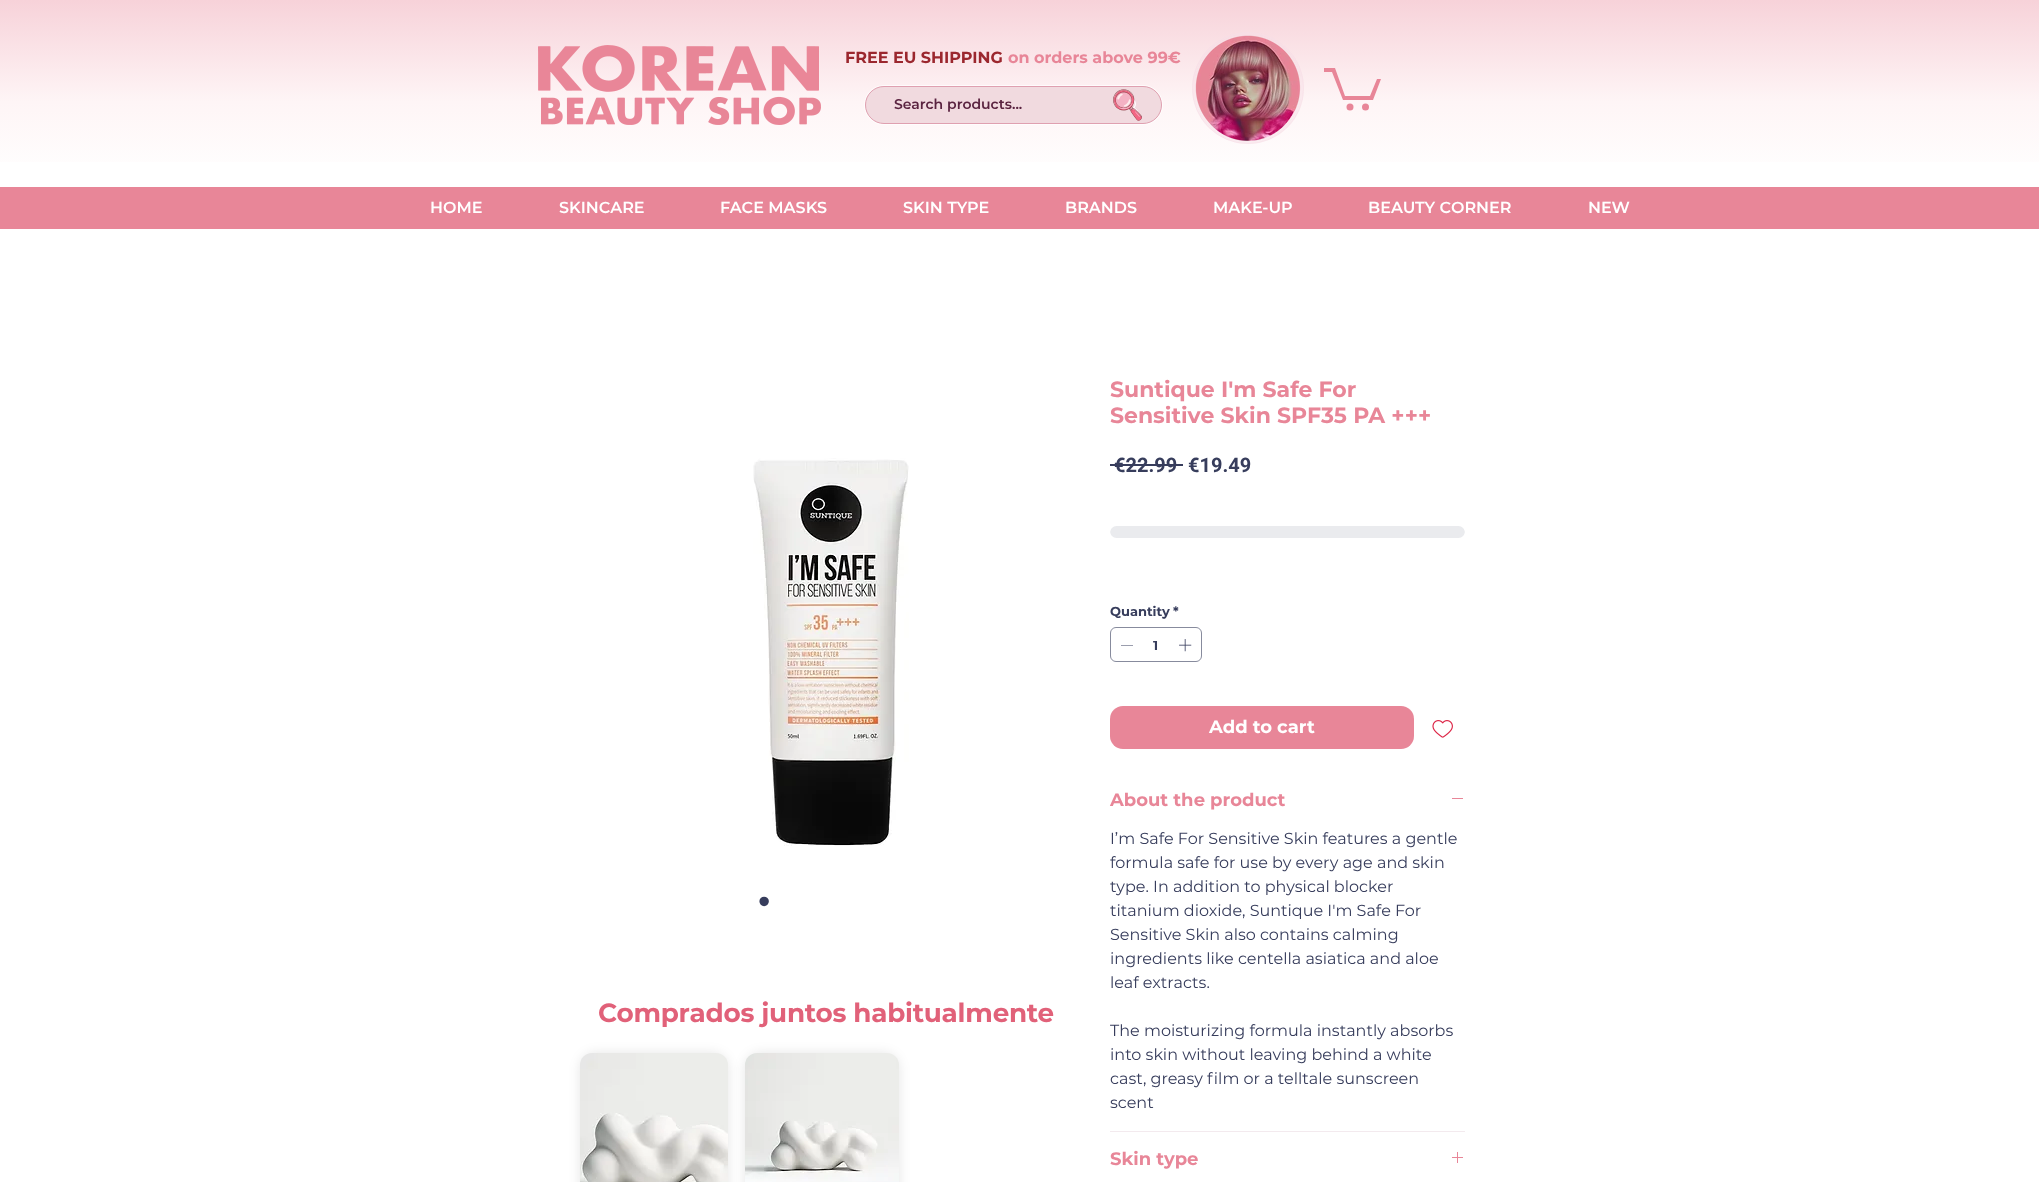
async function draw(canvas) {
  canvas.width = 2039;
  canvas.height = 1182;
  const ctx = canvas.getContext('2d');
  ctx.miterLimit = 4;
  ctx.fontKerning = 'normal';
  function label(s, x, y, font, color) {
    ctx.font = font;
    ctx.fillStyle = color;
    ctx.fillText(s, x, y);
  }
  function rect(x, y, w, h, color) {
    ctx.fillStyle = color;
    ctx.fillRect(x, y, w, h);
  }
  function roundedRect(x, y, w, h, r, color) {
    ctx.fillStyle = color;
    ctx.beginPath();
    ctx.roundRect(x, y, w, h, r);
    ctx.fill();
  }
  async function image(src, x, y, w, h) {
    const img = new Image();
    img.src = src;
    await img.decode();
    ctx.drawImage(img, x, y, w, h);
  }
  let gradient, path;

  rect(0, 0, 2039, 1182, '#fff');
  gradient = ctx.createLinearGradient(1020, 189, 1020, 0);
  gradient.addColorStop(0.04, '#fff');
  gradient.addColorStop(0.46, '#fef5f6');
  gradient.addColorStop(1, '#f7d2d9');
  ctx.fillStyle = gradient;
  ctx.fillRect(0, 0, 2039, 162);
  await image('assets/img1.png', 538, 45, 283, 80);
  label('FREE EU SHIPPING', 845, 63, 'bold 16px Montserrat', '#9b272e');
  label('on orders above 99€', 1008, 63, 'bold 16px Montserrat', '#e88698');
  ctx.beginPath();
  ctx.roundRect(864.5, 85.5, 298, 39, 19.5);
  ctx.strokeStyle = '#ffffffbf';
  ctx.stroke();
  ctx.fillStyle = '#f1dadf';
  ctx.beginPath();
  ctx.roundRect(865.5, 86.5, 296, 37, 18.5);
  ctx.fill();
  ctx.strokeStyle = '#dfa0b0';
  ctx.stroke();
  label('Search products...', 894, 109, '600 14px Montserrat', '#5a2340');
  await image('assets/img2.png', 1127, 99, 11, 13);
  await image('assets/img3.png', 1113, 89, 29, 32);
  ctx.fillStyle = '#f6dee67d';
  ctx.beginPath();
  ctx.arc(1248, 88, 56, 0, 2 * Math.PI);
  ctx.fill();
  ctx.beginPath();
  ctx.arc(1248, 88, 55.5, 0, 2 * Math.PI);
  ctx.strokeStyle = '#f6dee67d';
  ctx.stroke();
  await image('assets/img4.png', 1195, 35, 106, 106);
  ctx.fillStyle = '#e88698';
  path = new Path2D('M1381 79L1373 100H1343L1332 72H1324V68H1335L1345 96H1370L1377 79');
  ctx.fill(path);
  ctx.beginPath();
  ctx.arc(1365.5, 107, 3.5, 0, 2 * Math.PI);
  ctx.fill();
  ctx.beginPath();
  ctx.arc(1350, 107, 3.5, 0, 2 * Math.PI);
  ctx.fill();
  rect(0, 187, 2039, 42, '#e88698');
  label('HOME', 430, 213, '600 16px Montserrat', '#fff');
  label('SKINCARE', 559, 213, '600 16px Montserrat', '#fff');
  label('FACE MASKS', 720, 213, '600 16px Montserrat', '#fff');
  label('SKIN TYPE', 903, 213, '600 16px Montserrat', '#fff');
  label('BRANDS', 1065, 213, '600 16px Montserrat', '#fff');
  label('MAKE-UP', 1213, 213, '600 16px Montserrat', '#fff');
  label('BEAUTY CORNER', 1368, 213, '600 16px Montserrat', '#fff');
  label('NEW', 1588, 213, '600 16px Montserrat', '#fff');
  await image('assets/img5.png', 753, 458, 156, 388);
  label('•', 758, 913, '35px Liberation Sans', '#373d5c');
  ctx.letterSpacing = '-0.25px';
  label('Comprados juntos habitualmente', 598, 1022, 'bold 26.25px Montserrat', '#e16179');
  ctx.fillStyle = '#0000001a';
  ctx.filter = 'blur(6px)';
  ctx.beginPath();
  ctx.roundRect(580, 1053, 148, 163, 16);
  ctx.fill();
  ctx.filter = 'none';
  ctx.beginPath();
  ctx.roundRect(580.5, 1053.5, 147, 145, 15.5);
  ctx.strokeStyle = '#ebebeb';
  ctx.stroke();
  await image('assets/img6.png', 580, 1053, 148, 129);
  ctx.filter = 'blur(6px)';
  ctx.beginPath();
  ctx.roundRect(745, 1053, 154, 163, 16);
  ctx.fill();
  ctx.filter = 'none';
  ctx.beginPath();
  ctx.roundRect(745.5, 1053.5, 153, 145, 15.5);
  ctx.stroke();
  await image('assets/img7.png', 745, 1053, 154, 129);
  ctx.letterSpacing = '0px';
  label('Suntique I\'m Safe For', 1110, 397, 'bold 22px Montserrat', '#e88698');
  label('Sensitive Skin SPF35 PA +++', 1110, 423, 'bold 22px Montserrat', '#e88698');
  label('€22.99', 1114, 472, 'bold 20px Roboto', '#373d5c');
  rect(1110, 464, 73, 2, '#373d5c');
  label('€19.49', 1188, 472, 'bold 20px Roboto', '#373d5c');
  ctx.save();
  ctx.beginPath();
  ctx.roundRect(1110, 525, 355, 13, 6.5);
  ctx.clip();
  roundedRect(1110, 526, 355, 13, 6.5, '#eaebee');
  ctx.restore();
  label('Quantity', 1110, 616, 'bold 13px Montserrat', '#373d5c');
  label('*', 1173, 616, 'bold 13px Montserrat', '#373d5c');
  ctx.beginPath();
  ctx.roundRect(1110.5, 627.5, 91, 34, 5.5);
  ctx.strokeStyle = '#878b9d';
  ctx.stroke();
  path = new Path2D('M1133 645V645.5H1121V645Z');
  ctx.fill(path, 'evenodd');
  label('1', 1153, 650, 'bold 13px Montserrat', '#373d5c');
  await image('assets/img8.png', 1179, 639, 13, 13);
  roundedRect(1110, 706, 304, 43, 13, '#e88698');
  label('Add to cart', 1209, 733, 'bold 18px Montserrat', '#fff');
  await image('assets/img9.png', 1432, 720, 21, 18);
  rect(1110, 1131, 355, 1, '#f3eaee');
  label('About the product', 1110, 806, 'bold 18px Montserrat', '#e88698');
  rect(1452, 798, 11, 1, '#e88698');
  label('I’m Safe For Sensitive Skin features a gentle', 1110, 844, '16px Montserrat', '#373d5c');
  label('formula safe for use by every age and skin', 1110, 868, '16px Montserrat', '#373d5c');
  label('type. In addition to physical blocker', 1110, 892, '16px Montserrat', '#373d5c');
  label('titanium dioxide, Suntique I\'m Safe For', 1110, 916, '16px Montserrat', '#373d5c');
  label('Sensitive Skin also contains calming', 1110, 940, '16px Montserrat', '#373d5c');
  label('ingredients like centella asiatica and aloe', 1110, 964, '16px Montserrat', '#373d5c');
  label('leaf extracts.', 1110, 988, '16px Montserrat', '#373d5c');
  label('The moisturizing formula instantly absorbs', 1110, 1036, '16px Montserrat', '#373d5c');
  label('into skin without leaving behind a white', 1110, 1060, '16px Montserrat', '#373d5c');
  label('cast, greasy film or a telltale sunscreen', 1110, 1084, '16px Montserrat', '#373d5c');
  label('scent', 1110, 1108, '16px Montserrat', '#373d5c');
  label('Skin type', 1110, 1165, 'bold 18px Montserrat', '#e88698');
  await image('assets/img10.png', 1452, 1152, 11, 11);
}

draw(document.querySelector('canvas'));
